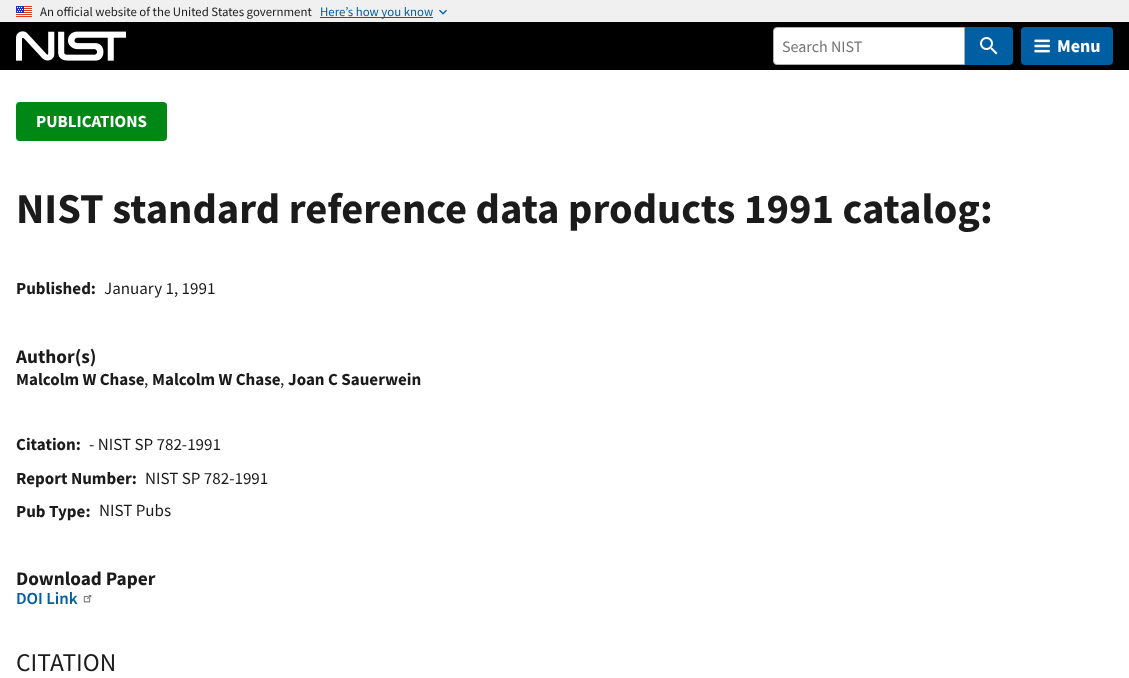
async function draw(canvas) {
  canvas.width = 1129;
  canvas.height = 678;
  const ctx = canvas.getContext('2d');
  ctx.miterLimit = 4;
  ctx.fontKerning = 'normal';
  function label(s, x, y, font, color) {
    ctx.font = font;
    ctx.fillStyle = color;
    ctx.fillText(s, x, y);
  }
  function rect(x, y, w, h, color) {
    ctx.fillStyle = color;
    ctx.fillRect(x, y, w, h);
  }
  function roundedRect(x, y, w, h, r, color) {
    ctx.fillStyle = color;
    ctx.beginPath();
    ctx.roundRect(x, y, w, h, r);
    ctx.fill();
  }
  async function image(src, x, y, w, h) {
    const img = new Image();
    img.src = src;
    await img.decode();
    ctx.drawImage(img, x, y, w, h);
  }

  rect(0, 0, 1129, 678, '#fff');
  rect(0, 0, 1129, 22, '#f0f0f0');
  await image('assets/img1.png', 16, 6, 16, 11);
  label('An official website of the United States government', 40, 16, '12.8px Source Sans Pro', '#1b1b1b');
  rect(320, 17, 113, 1, '#005ea2');
  label('Here’s how you know', 320, 16, '12.8px Source Sans Pro', '#005ea2');
  await image('assets/img2.png', 439, 9, 8, 6);
  rect(0, 22, 1129, 48, '#000');
  await image('assets/img3.png', 16, 31, 110, 30);
  ctx.fillStyle = '#fff';
  ctx.beginPath();
  ctx.roundRect(773.5, 27.5, 191, 37, [3.5, 0, 0, 3.5]);
  ctx.fill();
  ctx.strokeStyle = '#adadad';
  ctx.stroke();
  label('Search NIST', 782, 52, '16px Source Sans Pro', '#757575');
  ctx.fillStyle = '#005ea2';
  ctx.beginPath();
  ctx.roundRect(965, 27, 48, 38, [0, 4, 4, 0]);
  ctx.fill();
  await image('assets/img4.png', 980, 37, 18, 18);
  roundedRect(1021, 27, 92, 38, 4, '#005ea2');
  await image('assets/img5.png', 1034, 39, 16, 14);
  label('Menu', 1057, 52, 'bold 18px Source Sans Pro', '#fff');
  roundedRect(16, 102, 151, 39, 4, '#008817');
  label('PUBLICATIONS', 36, 127, 'bold 17px Source Sans Pro', '#fff');
  label('NIST standard reference data products 1991 catalog:', 16, 223, 'bold 42.6px Source Sans Pro', '#1b1b1b');
  label('Published:', 16, 294, 'bold 17px Source Sans Pro', '#1b1b1b');
  label('January 1, 1991', 104, 294, '17px Source Sans Pro', '#1b1b1b');
  label('Author(s)', 16, 363, 'bold 19.25px Source Sans Pro', '#1b1b1b');
  label('Malcolm W Chase', 16, 385, 'bold 17px Source Sans Pro', '#1b1b1b');
  label(',', 144, 385, '17px Source Sans Pro', '#1b1b1b');
  label('Malcolm W Chase', 152, 385, 'bold 17px Source Sans Pro', '#1b1b1b');
  label(',', 280, 385, '17px Source Sans Pro', '#1b1b1b');
  label('Joan C Sauerwein', 288, 385, 'bold 17px Source Sans Pro', '#1b1b1b');
  label('Citation:', 16, 450, 'bold 17px Source Sans Pro', '#1b1b1b');
  label('- NIST SP 782-1991', 89, 450, '17px Source Sans Pro', '#1b1b1b');
  label('Report Number:', 16, 484, 'bold 17px Source Sans Pro', '#1b1b1b');
  label('NIST SP 782-1991', 145, 484, '17px Source Sans Pro', '#1b1b1b');
  label('Pub Type:', 16, 517, 'bold 17px Source Sans Pro', '#1b1b1b');
  label('NIST Pubs', 99, 516, '17px Source Sans Pro', '#1b1b1b');
  label('Download Paper', 16, 585, 'bold 19.25px Source Sans Pro', '#1b1b1b');
  label('DOI Link', 16, 604, '600 17px Source Sans Pro', '#005ea2');
  await image('assets/img6.png', 83, 594, 9, 9);
  label('CITATION', 16, 671, '25.5px Source Sans Pro', '#1b1b1b');
}

draw(document.querySelector('canvas'));
